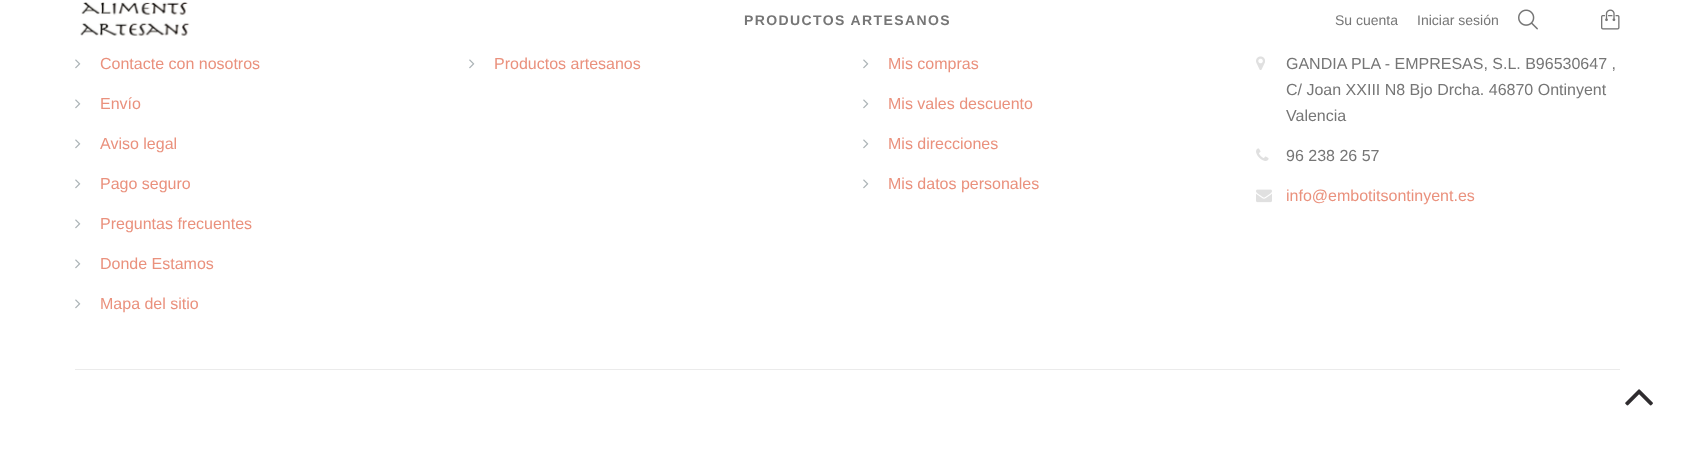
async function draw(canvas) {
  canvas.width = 1695;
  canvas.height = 461;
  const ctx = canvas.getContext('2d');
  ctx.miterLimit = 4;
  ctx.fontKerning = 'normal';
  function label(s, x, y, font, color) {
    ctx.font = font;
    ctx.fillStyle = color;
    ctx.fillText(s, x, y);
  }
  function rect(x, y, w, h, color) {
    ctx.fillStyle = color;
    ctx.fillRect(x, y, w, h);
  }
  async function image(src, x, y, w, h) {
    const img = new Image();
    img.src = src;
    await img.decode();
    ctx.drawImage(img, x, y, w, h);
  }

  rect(0, 0, 1695, 461, '#fff');
  await image('assets/img1.png', 80, 2, 110, 34);
  ctx.letterSpacing = '1.4px';
  label('PRODUCTOS ARTESANOS', 744, 25, 'bold 14px Arimo', '#767676');
  ctx.letterSpacing = '0px';
  label('Su cuenta', 1335, 25, '14px Arimo', '#767676');
  label('Iniciar sesión', 1417, 25, '14px Arimo', '#767676');
  await image('assets/img2.png', 1518, 9, 20, 21);
  await image('assets/img3.png', 1601, 9, 19, 21);
  await image('assets/img4.png', 75, 59, 6, 10);
  label('Contacte con nosotros', 100, 69, '16px Arimo', '#ea917d');
  await image('assets/img4.png', 75, 99, 6, 10);
  label('Envío', 100, 109, '16px Arimo', '#ea917d');
  await image('assets/img4.png', 75, 139, 6, 10);
  label('Aviso legal', 100, 149, '16px Arimo', '#ea917d');
  await image('assets/img4.png', 75, 179, 6, 10);
  label('Pago seguro', 100, 189, '16px Arimo', '#ea917d');
  await image('assets/img4.png', 75, 219, 6, 10);
  label('Preguntas frecuentes', 100, 229, '16px Arimo', '#ea917d');
  await image('assets/img4.png', 75, 259, 6, 10);
  label('Donde Estamos', 100, 269, '16px Arimo', '#ea917d');
  await image('assets/img4.png', 75, 299, 6, 10);
  label('Mapa del sitio', 100, 309, '16px Arimo', '#ea917d');
  await image('assets/img4.png', 469, 59, 6, 10);
  label('Productos artesanos', 494, 69, '16px Arimo', '#ea917d');
  await image('assets/img4.png', 863, 59, 6, 10);
  label('Mis compras', 888, 69, '16px Arimo', '#ea917d');
  await image('assets/img4.png', 863, 99, 6, 10);
  label('Mis vales descuento', 888, 109, '16px Arimo', '#ea917d');
  await image('assets/img4.png', 863, 139, 6, 10);
  label('Mis direcciones', 888, 149, '16px Arimo', '#ea917d');
  await image('assets/img4.png', 863, 179, 6, 10);
  label('Mis datos personales', 888, 189, '16px Arimo', '#ea917d');
  await image('assets/img5.png', 1256, 56, 9, 14);
  label('GANDIA PLA - EMPRESAS, S.L. B96530647 ,', 1286, 69, '16px Arimo', '#767676');
  label('C/ Joan XXIII N8 Bjo Drcha. 46870 Ontinyent', 1286, 95, '16px Arimo', '#767676');
  label('Valencia', 1286, 121, '16px Arimo', '#767676');
  await image('assets/img6.png', 1256, 148, 13, 13);
  label('96 238 26 57', 1286, 161, '16px Arimo', '#767676');
  await image('assets/img7.png', 1256, 189, 16, 14);
  label('info@embotitsontinyent.es', 1286, 201, '16px Arimo', '#ea917d');
  rect(75, 369, 1545, 1, '#ebebeb');
  await image('assets/img8.png', 1625, 389, 28, 17);
}

draw(document.querySelector('canvas'));
